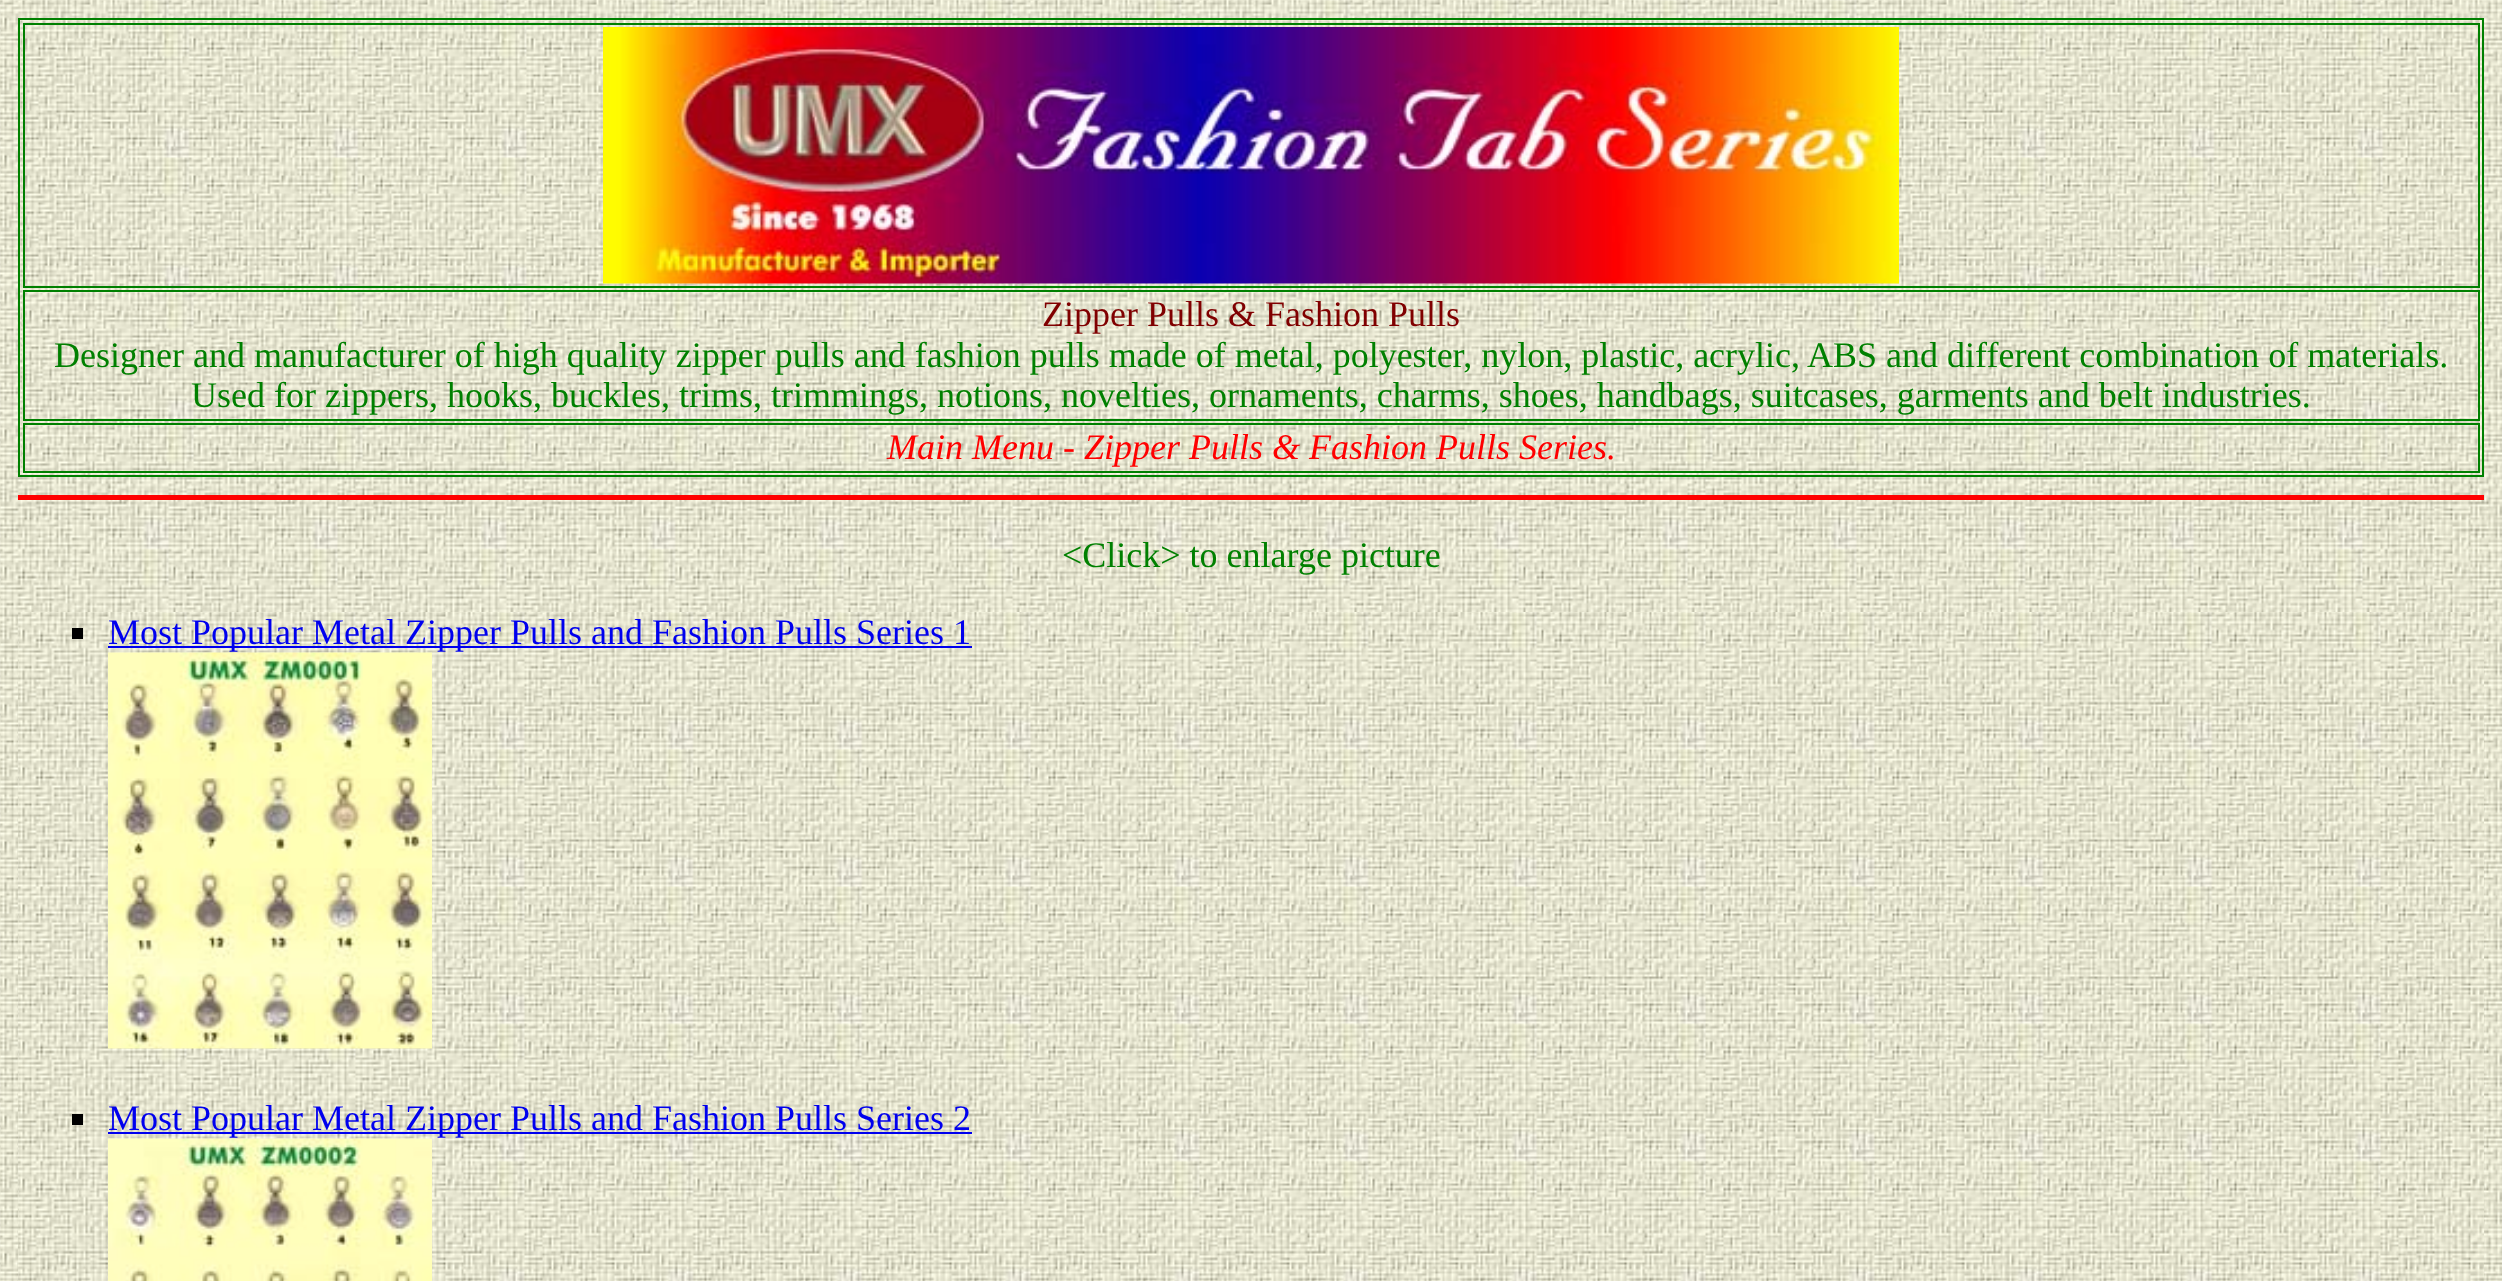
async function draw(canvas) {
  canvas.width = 2502;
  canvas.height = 1281;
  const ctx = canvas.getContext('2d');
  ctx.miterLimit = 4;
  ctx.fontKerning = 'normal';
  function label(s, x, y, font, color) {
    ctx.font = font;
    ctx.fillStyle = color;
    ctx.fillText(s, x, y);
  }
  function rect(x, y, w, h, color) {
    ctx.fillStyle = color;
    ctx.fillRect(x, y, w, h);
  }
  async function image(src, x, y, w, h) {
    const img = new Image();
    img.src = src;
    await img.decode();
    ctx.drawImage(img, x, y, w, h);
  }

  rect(0, 0, 2502, 1281, '#fff');
  await image('assets/img1.png', 0, 0, 2502, 1281);
  await image('assets/img2.png', 20, 20, 2462, 455);
  ctx.strokeStyle = '#008000';
  ctx.lineWidth = 2;
  ctx.strokeRect(19, 19, 2464, 457);
  ctx.strokeRect(24, 24, 2455, 263);
  await image('assets/img3.png', 603, 27, 1296, 257);
  await image('assets/img4.png', 22, 290, 2456, 131);
  ctx.strokeRect(24, 291, 2455, 129);
  label('Zipper Pulls & Fashion Pulls', 1042, 326, '36px Liberation Serif', '#800000');
  label('Designer and manufacturer of high quality zipper pulls and fashion pulls made of metal, polyester, nylon, plastic, acrylic, ABS and different combination of materials.', 54, 367, '36px Liberation Serif', '#008000');
  label('Used for zippers, hooks, buckles, trims, trimmings, notions, novelties, ornaments, charms, shoes, handbags, suitcases, garments and belt industries.', 191, 407, '36px Liberation Serif', '#008000');
  await image('assets/img5.png', 22, 423, 2456, 50);
  ctx.strokeRect(24, 424, 2455, 48);
  label('Main Menu - Zipper Pulls & Fashion Pulls Series.', 887, 459, 'italic 36px Liberation Serif', '#f00');
  rect(18, 495, 2466, 5, '#f00');
  label('<Click> to enlarge picture', 1062, 567, '36px Liberation Serif', '#008000');
  await image('assets/img6.png', 18, 612, 2466, 669);
  rect(72, 628, 11, 11, '#000');
  rect(108, 646, 864, 2, '#00e');
  label('Most Popular Metal Zipper Pulls and Fashion Pulls Series 1', 108, 644, '36px Liberation Serif', '#00e');
  await image('assets/img7.png', 108, 652, 324, 397);
  rect(72, 1114, 11, 11, '#000');
  rect(108, 1132, 864, 2, '#00e');
  label('Most Popular Metal Zipper Pulls and Fashion Pulls Series 2', 108, 1130, '36px Liberation Serif', '#00e');
  await image('assets/img8.png', 108, 1138, 324, 143);
}

draw(document.querySelector('canvas'));
